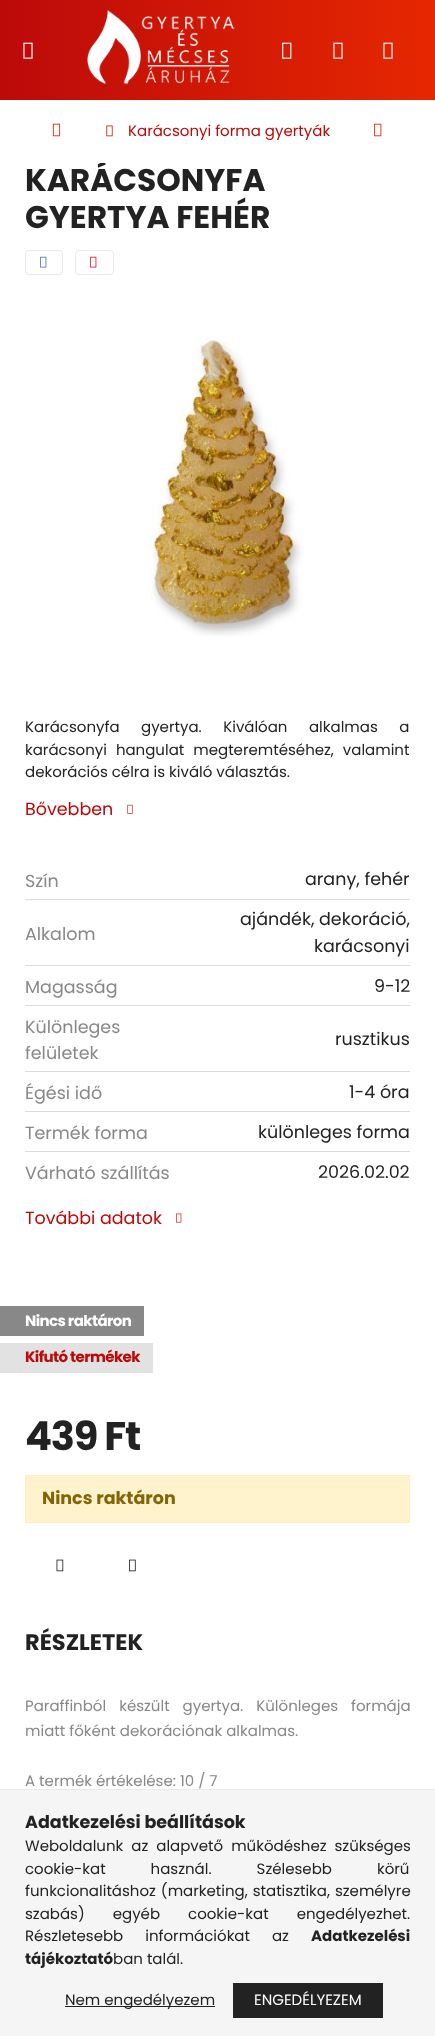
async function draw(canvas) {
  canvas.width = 435;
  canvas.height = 2036;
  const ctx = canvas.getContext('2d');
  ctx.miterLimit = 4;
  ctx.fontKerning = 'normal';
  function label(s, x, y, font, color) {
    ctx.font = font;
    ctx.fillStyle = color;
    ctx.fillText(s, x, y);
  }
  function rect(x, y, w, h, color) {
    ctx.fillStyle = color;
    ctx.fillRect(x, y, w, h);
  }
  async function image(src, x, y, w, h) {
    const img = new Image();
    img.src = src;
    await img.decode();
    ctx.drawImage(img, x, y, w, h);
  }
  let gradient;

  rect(0, 0, 435, 2036, '#fff');
  gradient = ctx.createLinearGradient(0, 50, 435, 50);
  gradient.addColorStop(0, '#bc0a0a');
  gradient.addColorStop(1, '#e62701');
  ctx.fillStyle = gradient;
  ctx.fillRect(0, 0, 435, 100);
  await image('assets/img1.png', 23, 42, 10, 17);
  await image('assets/img2.png', 87, 10, 148, 75);
  await image('assets/img3.png', 282, 42, 10, 17);
  await image('assets/img4.png', 333, 42, 10, 17);
  await image('assets/img5.png', 383, 42, 10, 17);
  await image('assets/img6.png', 52, 123, 9, 14);
  await image('assets/img7.png', 106, 125, 7, 12);
  label('Karácsonyi forma gyertyák', 128, 136, '15px Poppins', '#bc0a0a');
  await image('assets/img8.png', 374, 123, 8, 14);
  ctx.save();
  ctx.beginPath();
  ctx.rect(25, 163, 385, 75);
  ctx.clip();
  label('KARÁCSONYFA', 25, 191, 'bold 31.25px Poppins', '#222');
  ctx.restore();
  label('GYERTYA FEHÉR', 25, 228, 'bold 31.25px Poppins', '#222');
  ctx.beginPath();
  ctx.roundRect(25.5, 250.5, 37, 24, 3.5);
  ctx.strokeStyle = '#eaeaea';
  ctx.stroke();
  await image('assets/img9.png', 40, 256, 7, 12);
  ctx.beginPath();
  ctx.roundRect(75.5, 250.5, 38, 24, 3.5);
  ctx.stroke();
  await image('assets/img10.png', 90, 256, 7, 12);
  await image('assets/img11.png', 151, 336, 154, 301);
  ctx.wordSpacing = '17.5px';
  label('Karácsonyfa gyertya. Kiválóan alkalmas a', 25, 732, '15px Poppins', '#222');
  ctx.wordSpacing = '5px';
  label('karácsonyi hangulat megteremtéséhez, valamint', 25, 755, '15px Poppins', '#222');
  ctx.wordSpacing = '0px';
  label('dekorációs célra is kiváló választás.', 25, 777, '15px Poppins', '#222');
  label('Bővebben', 25, 815, '17.5px Poppins', '#bc0a0a');
  await image('assets/img12.png', 127, 804, 6, 10);
  rect(25, 899, 385, 1, '#ddd');
  label('Szín', 25, 887, '17.5px Poppins', '#888');
  label('arany, fehér', 305, 885, '17.5px Poppins', '#222');
  rect(25, 965, 385, 1, '#ddd');
  label('Alkalom', 25, 940, '17.5px Poppins', '#888');
  label('ajándék, dekoráció,', 240, 925, '17.5px Poppins', '#222');
  label('karácsonyi', 314, 952, '17.5px Poppins', '#222');
  rect(25, 1005, 385, 1, '#ddd');
  label('Magasság', 25, 993, '17.5px Poppins', '#888');
  label('9-12', 374, 992, '17.5px Poppins', '#222');
  rect(25, 1071, 385, 1, '#ddd');
  label('Különleges', 25, 1033, '17.5px Poppins', '#888');
  label('felületek', 25, 1059, '17.5px Poppins', '#888');
  label('rusztikus', 335, 1045, '17.5px Poppins', '#222');
  rect(25, 1111, 385, 1, '#ddd');
  label('Égési idő', 25, 1099, '17.5px Poppins', '#888');
  label('1-4 óra', 349, 1098, '17.5px Poppins', '#222');
  rect(25, 1151, 385, 1, '#ddd');
  label('Termék forma', 25, 1139, '17.5px Poppins', '#888');
  label('különleges forma', 258, 1138, '17.5px Poppins', '#222');
  label('Várható szállítás', 25, 1179, '17.5px Poppins', '#888');
  label('2026.02.02', 318, 1178, '17.5px Poppins', '#222');
  label('További adatok', 25, 1224, '17.5px Poppins', '#bc0a0a');
  await image('assets/img13.png', 176, 1213, 6, 10);
  rect(0, 1306, 144, 30, '#888');
  ctx.letterSpacing = '-0.6px';
  label('Nincs raktáron', 25, 1326, 'bold 15px Poppins', '#fff');
  rect(0, 1343, 153, 30, '#e2e2e2');
  label('Kifutó termékek', 25, 1362, 'bold 15px Poppins', '#bc0a0a');
  ctx.letterSpacing = '-1.25px';
  label('439 Ft', 25, 1450, 'bold 40px Poppins', '#222');
  ctx.fillStyle = '#fff3cd';
  ctx.beginPath();
  ctx.rect(25.5, 1475.5, 384, 47);
  ctx.fill();
  ctx.strokeStyle = '#ffeeba';
  ctx.stroke();
  ctx.letterSpacing = '0px';
  label('Nincs raktáron', 42, 1504, 'bold 17.5px Poppins', '#856404');
  await image('assets/img14.png', 56, 1559, 8, 13);
  await image('assets/img15.png', 129, 1559, 7, 13);
  label('RÉSZLETEK', 25, 1650, 'bold 22.5px Poppins', '#222');
  ctx.wordSpacing = '9px';
  label('Paraffinból készült gyertya. Különleges formája', 25, 1711, '15px Poppins', '#888');
  ctx.wordSpacing = '0px';
  label('miatt főként dekorációnak alkalmas.', 25, 1736, '15px Poppins', '#888');
  label('A termék értékelése: 10 / 7', 25, 1786, '15px Poppins', '#888');
  rect(0, 1790, 435, 246, '#f5f5f5');
  rect(0, 1789, 435, 1, '#eaeaea');
  label('Adatkezelési beállítások', 25, 1828, 'bold 17.5px Poppins', '#222');
  ctx.wordSpacing = '4px';
  label('Weboldalunk az alapvető működéshez szükséges', 25, 1851, '15px Poppins', '#222');
  ctx.wordSpacing = '41px';
  label('cookie-kat használ. Szélesebb körű', 25, 1874, '15px Poppins', '#222');
  ctx.wordSpacing = '1px';
  label('funkcionalitáshoz (marketing, statisztika, személyre', 25, 1896, '15px Poppins', '#222');
  ctx.wordSpacing = '24px';
  label('szabás) egyéb cookie-kat engedélyezhet.', 25, 1919, '15px Poppins', '#222');
  ctx.wordSpacing = '18px';
  label('Részletesebb információkat az', 25, 1941, '15px Poppins', '#222');
  ctx.wordSpacing = '0px';
  label('Adatkezelési', 311, 1941, 'bold 15px Poppins', '#222');
  label('tájékoztató', 25, 1964, 'bold 15px Poppins', '#222');
  label('ban talál.', 113, 1964, '15px Poppins', '#222');
  rect(65, 2006, 150, 1, '#222');
  label('Nem engedélyezem', 65, 2005, '15px Poppins', '#222');
  gradient = ctx.createLinearGradient(-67, 2000, 383, 2000);
  gradient.addColorStop(0, '#222');
  gradient.addColorStop(0.33, '#e62701');
  gradient.addColorStop(0.67, '#222');
  gradient.addColorStop(1, '#222');
  ctx.fillStyle = gradient;
  ctx.fillRect(233, 1983, 150, 35);
  label('ENGEDÉLYEZEM', 254, 2005, '15px Poppins', '#fff');
}

draw(document.querySelector('canvas'));
